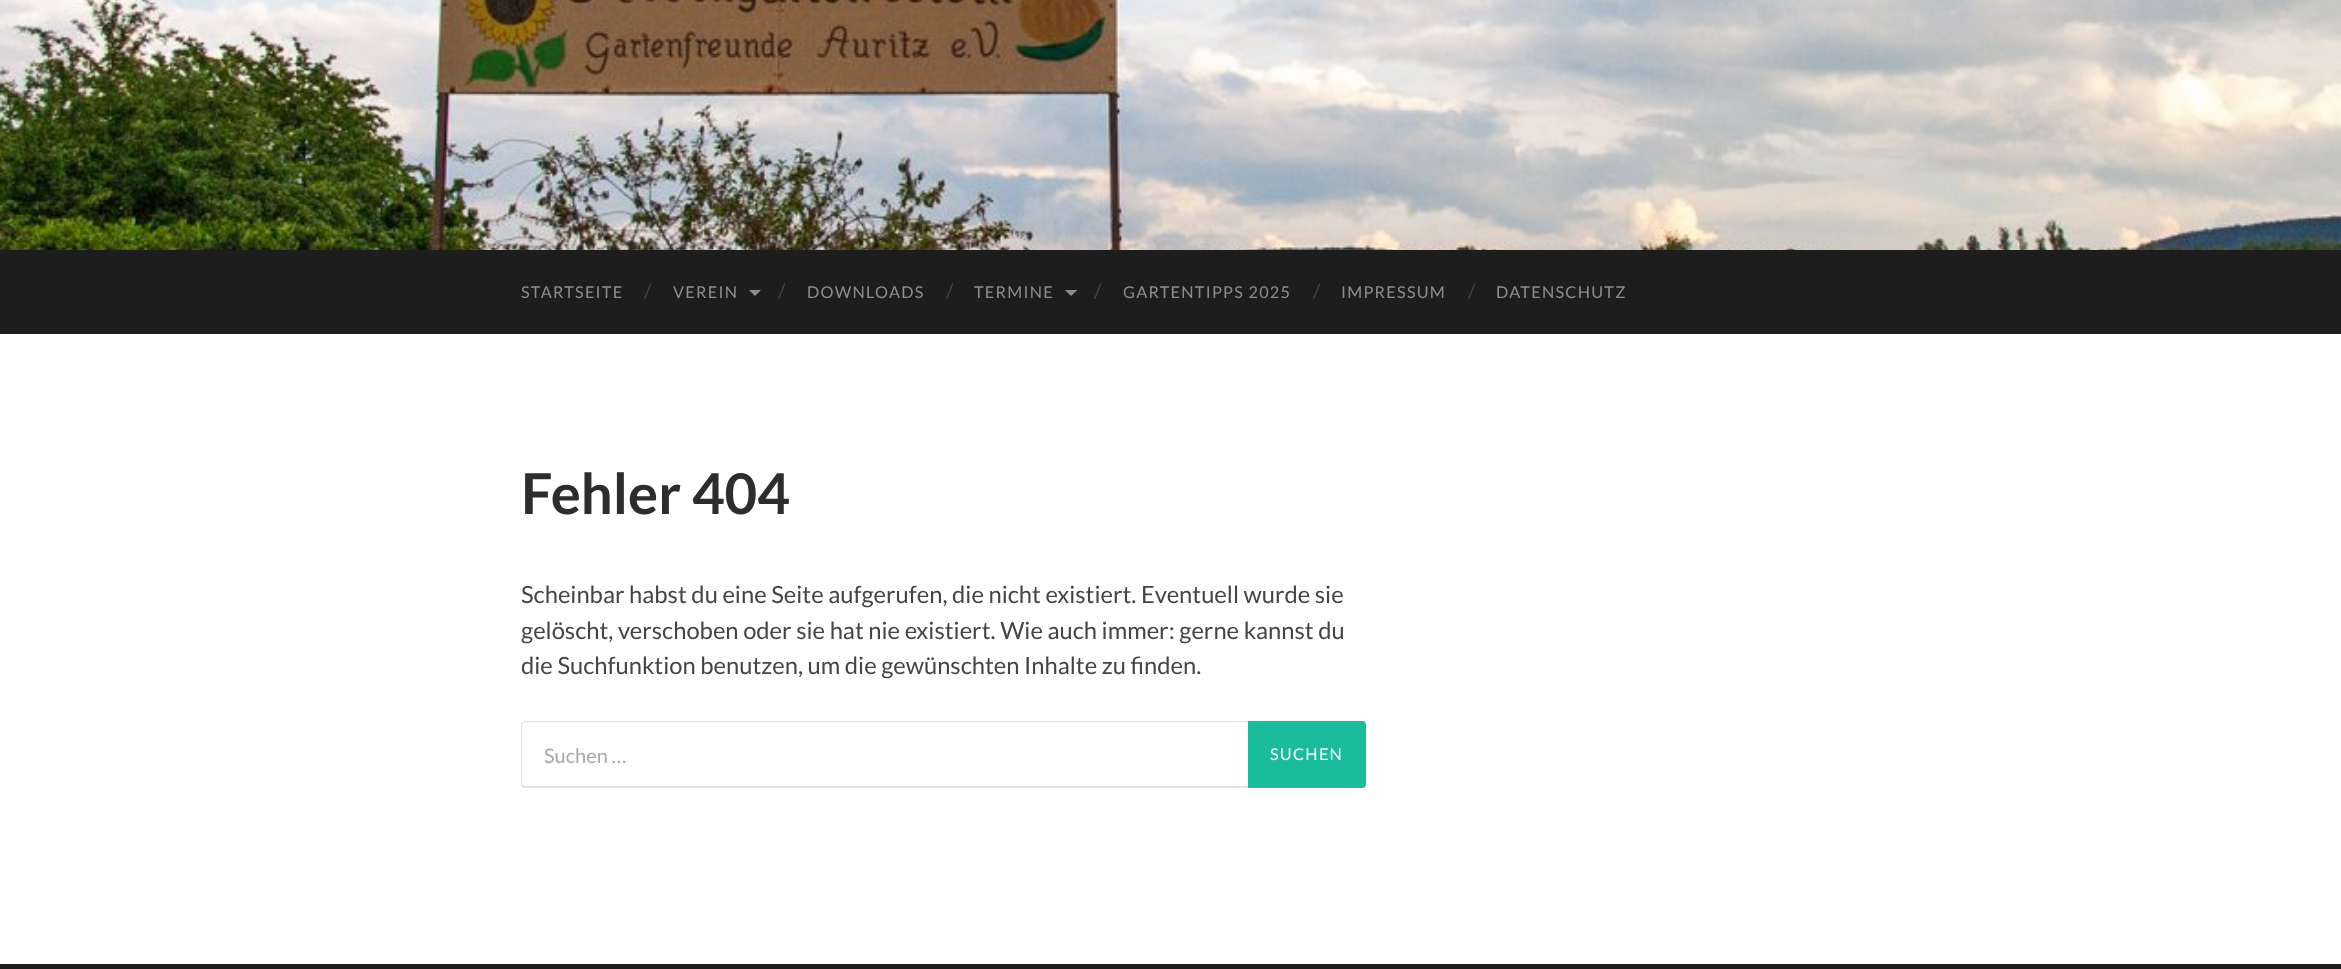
async function draw(canvas) {
  canvas.width = 2341;
  canvas.height = 969;
  const ctx = canvas.getContext('2d');
  ctx.miterLimit = 4;
  ctx.fontKerning = 'normal';
  function label(s, x, y, font, color) {
    ctx.font = font;
    ctx.fillStyle = color;
    ctx.fillText(s, x, y);
  }
  function rect(x, y, w, h, color) {
    ctx.fillStyle = color;
    ctx.fillRect(x, y, w, h);
  }
  async function image(src, x, y, w, h) {
    const img = new Image();
    img.src = src;
    await img.decode();
    ctx.drawImage(img, x, y, w, h);
  }
  let path;

  rect(0, 0, 2341, 969, '#fff');
  await image('assets/img1.png', 0, 0, 2341, 250);
  rect(0, 250, 2341, 84, '#1d1d1d');
  ctx.letterSpacing = '1.25px';
  label('STARTSEITE', 521, 298, '16.25px Lato', '#8e8e8e');
  ctx.letterSpacing = '0px';
  label('/', 644, 298, '20px Lato', '#444');
  ctx.letterSpacing = '1.25px';
  label('VEREIN', 673, 298, '16.25px Lato', '#8e8e8e');
  path = new Path2D('M749 290H761L755 296Z');
  ctx.fill(path);
  ctx.letterSpacing = '0px';
  label('/', 778, 298, '20px Lato', '#444');
  ctx.letterSpacing = '1.25px';
  label('DOWNLOADS', 807, 298, '16.25px Lato', '#8e8e8e');
  ctx.letterSpacing = '0px';
  label('/', 946, 298, '20px Lato', '#444');
  ctx.letterSpacing = '1.25px';
  label('TERMINE', 974, 298, '16.25px Lato', '#8e8e8e');
  path = new Path2D('M1065 290H1077.5L1071 296Z');
  ctx.fill(path);
  ctx.letterSpacing = '0px';
  label('/', 1094, 298, '20px Lato', '#444');
  ctx.letterSpacing = '1.25px';
  label('GARTENTIPPS 2025', 1123, 298, '16.25px Lato', '#8e8e8e');
  ctx.letterSpacing = '0px';
  label('/', 1313, 298, '20px Lato', '#444');
  ctx.letterSpacing = '1.25px';
  label('IMPRESSUM', 1341, 298, '16.25px Lato', '#8e8e8e');
  ctx.letterSpacing = '0px';
  label('/', 1468, 298, '20px Lato', '#444');
  ctx.letterSpacing = '1.25px';
  label('DATENSCHUTZ', 1496, 298, '16.25px Lato', '#8e8e8e');
  ctx.letterSpacing = '0px';
  label('Fehler 404', 521, 514, 'bold 56.25px Lato', '#2d2d2d');
  label('Scheinbar habst du eine Seite aufgerufen, die nicht existiert. Eventuell wurde sie', 521, 603, '23.75px Lato', '#444');
  label('gelöscht, verschoben oder sie hat nie existiert. Wie auch immer: gerne kannst du', 521, 639, '23.75px Lato', '#444');
  label('die Suchfunktion benutzen, um die gewünschten Inhalte zu finden.', 521, 674, '23.75px Lato', '#444');
  ctx.fillStyle = '#e1e1e3';
  path = new Path2D('M525 721H1248V788H525C523 788 521 786 521 784V725C521 723 523 721 525 721ZM525 722H1248V786H525C524 786 522 785 522 784V725C522 724 524 722 525 722Z');
  ctx.fill(path, 'evenodd');
  label('Suchen …', 544, 763, '20px Lato', '#a9a9a9');
  ctx.fillStyle = '#1abc9c';
  ctx.beginPath();
  ctx.roundRect(1248, 721, 118, 67, [0, 4, 4, 0]);
  ctx.fill();
  ctx.letterSpacing = '1.25px';
  label('SUCHEN', 1270, 760, '16.25px Lato', '#fff');
  rect(0, 964, 2341, 5, '#1d1d1d');
}

draw(document.querySelector('canvas'));
